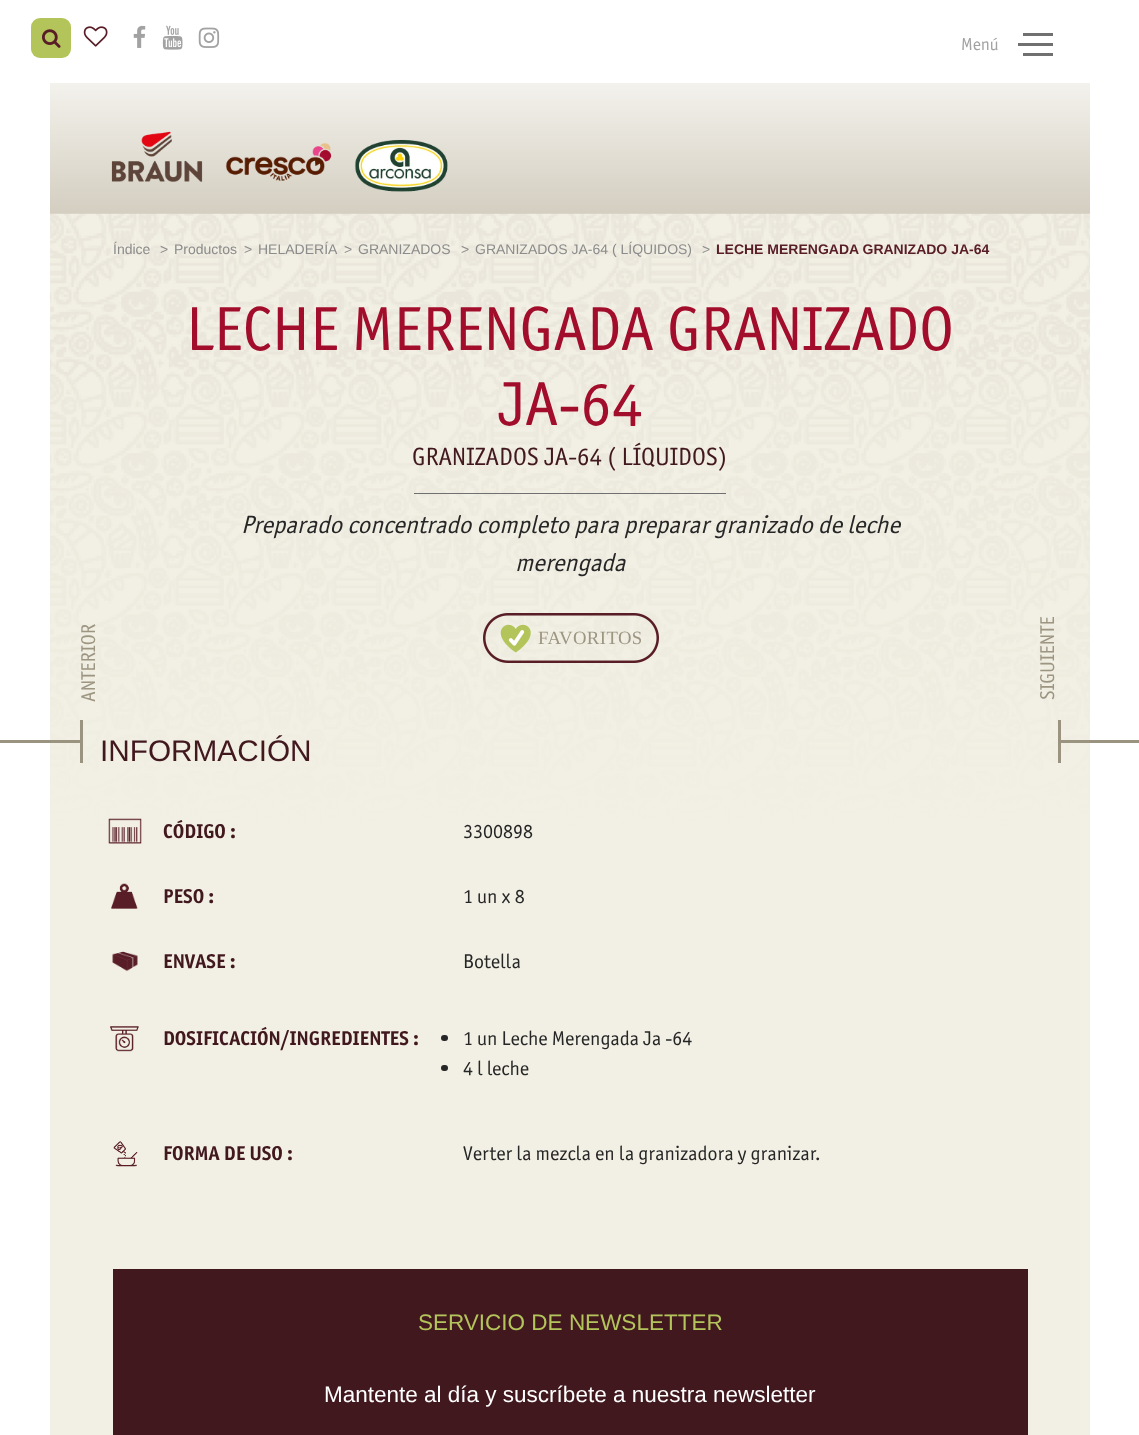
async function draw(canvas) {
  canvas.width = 1139;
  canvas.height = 1435;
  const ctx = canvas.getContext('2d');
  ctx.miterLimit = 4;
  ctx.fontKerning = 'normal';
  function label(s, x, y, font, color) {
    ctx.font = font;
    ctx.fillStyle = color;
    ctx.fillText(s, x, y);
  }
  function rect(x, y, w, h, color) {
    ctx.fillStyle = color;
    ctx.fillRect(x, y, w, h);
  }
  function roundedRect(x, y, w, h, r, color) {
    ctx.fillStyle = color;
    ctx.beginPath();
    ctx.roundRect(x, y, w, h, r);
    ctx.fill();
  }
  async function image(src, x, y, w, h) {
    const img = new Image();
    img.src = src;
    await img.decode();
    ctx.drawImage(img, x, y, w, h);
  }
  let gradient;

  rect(0, 0, 1139, 1435, '#fff');
  roundedRect(31, 18, 40, 40, 9, '#b3c45b');
  await image('assets/img1.png', 42, 29, 19, 19);
  await image('assets/img2.png', 83, 26, 25, 21);
  await image('assets/img3.png', 133, 25, 13, 23);
  await image('assets/img4.png', 162, 25, 21, 25);
  await image('assets/img5.png', 198, 27, 22, 21);
  gradient = ctx.createLinearGradient(570, 82, 570, 214);
  gradient.addColorStop(0, '#f4f2ed');
  gradient.addColorStop(1, '#d3cec0');
  ctx.fillStyle = gradient;
  ctx.fillRect(50, 83, 1040, 131);
  label('Menú', 961, 50, '17.5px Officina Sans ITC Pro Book', '#a2a2a2');
  rect(1018, 43, 35, 3, '#707070');
  rect(1023, 33, 30, 3, '#707070');
  rect(1023, 53, 30, 3, '#707070');
  await image('assets/img6.png', 111, 131, 337, 61);
  rect(50, 839, 1040, 596, '#f2f0e4');
  await image('assets/img7.png', 50, 213, 1040, 624);
  label('Índice', 113, 254, '14px Liberation Sans', '#8b8b8b');
  label('>', 160, 254, '14px Liberation Sans', '#8b8b8b');
  label('Productos', 174, 254, '14px Liberation Sans', '#8b8b8b');
  label('>', 244, 254, '14px Liberation Sans', '#8b8b8b');
  label('HELADERÍA', 258, 254, '14px Liberation Sans', '#8b8b8b');
  label('>', 344, 254, '14px Liberation Sans', '#8b8b8b');
  label('GRANIZADOS', 358, 254, '14px Liberation Sans', '#8b8b8b');
  label('>', 461, 254, '14px Liberation Sans', '#8b8b8b');
  label('GRANIZADOS JA-64 ( LÍQUIDOS)', 475, 254, '14px Liberation Sans', '#8b8b8b');
  label('>', 702, 254, '14px Liberation Sans', '#8b8b8b');
  label('LECHE MERENGADA GRANIZADO JA-64', 716, 254, 'bold 14px Liberation Sans', '#581d27');
  label('LECHE MERENGADA GRANIZADO', 186, 350, '62.5px Officina Sans ITC Pro Book', '#a20d2c');
  gradient = ctx.createLinearGradient(570, 214, 570, 839);
  gradient.addColorStop(0, '#f2f0e400');
  gradient.addColorStop(0.7, '#f2f0e480');
  gradient.addColorStop(1, '#f2f0e4');
  ctx.fillStyle = gradient;
  ctx.fillRect(50, 376, 1040, 463);
  label('JA-64', 498, 425, '62.5px Officina Sans ITC Pro Book', '#a20d2c');
  label('GRANIZADOS JA-64 ( LÍQUIDOS)', 412, 465, '25px Officina Sans ITC Pro Book', '#42181f');
  rect(414, 493, 312, 1, '#707070');
  label('Preparado concentrado completo para preparar granizado de leche', 241, 533, 'italic 25px Officina Sans ITC Pro Book', '#262626');
  label('merengada', 515, 571, 'italic 25px Officina Sans ITC Pro Book', '#262626');
  ctx.font = '20px Officina Sans ITC Pro Book';
  ctx.fillStyle = '#9c9581';
  ctx.save();
  ctx.translate(95, 702);
  ctx.rotate(-90 * Math.PI / 180);
  ctx.fillText('ANTERIOR', 0, 0);
  ctx.restore();
  rect(0, 740, 80, 3, '#9a937f');
  rect(80, 720, 3, 43, '#9a937f');
  ctx.fillStyle = '#9c9581';
  ctx.save();
  ctx.translate(1054, 700);
  ctx.rotate(-90 * Math.PI / 180);
  ctx.fillText('SIGUIENTE', 0, 0);
  ctx.restore();
  rect(1060, 740, 79, 3, '#9a937f');
  rect(1058, 720, 3, 43, '#9a937f');
  ctx.letterSpacing = '0.4px';
  label('FAVORITOS', 538, 644, '18.75px Liberation Serif', '#9c9581');
  await image('assets/img8.png', 483, 613, 176, 50);
  ctx.letterSpacing = '0px';
  label('INFORMACIÓN', 100, 761, '29.75px Liberation Sans', '#42181f');
  await image('assets/img9.png', 108, 818, 34, 26);
  label('CÓDIGO :', 163, 838, 'bold 20px Officina Sans ITC Pro Book', '#42181f');
  label('3300898', 463, 838, '20px Officina Sans ITC Pro Book', '#262626');
  await image('assets/img10.png', 111, 883, 27, 26);
  label('PESO :', 163, 903, 'bold 20px Officina Sans ITC Pro Book', '#42181f');
  label('1 un x 8', 463, 903, '20px Officina Sans ITC Pro Book', '#262626');
  await image('assets/img11.png', 112, 951, 26, 21);
  label('ENVASE :', 163, 968, 'bold 20px Officina Sans ITC Pro Book', '#42181f');
  label('Botella', 463, 968, '20px Officina Sans ITC Pro Book', '#262626');
  await image('assets/img12.png', 110, 1026, 29, 26);
  label('DOSIFICACIÓN/INGREDIENTES :', 163, 1045, 'bold 20px Officina Sans ITC Pro Book', '#42181f');
  roundedRect(441, 1035, 7, 6, 3, '#262626');
  label('1 un Leche Merengada Ja -64', 463, 1045, '20px Officina Sans ITC Pro Book', '#262626');
  roundedRect(441, 1065, 7, 6, 3, '#262626');
  label('4 l leche', 463, 1075, '20px Officina Sans ITC Pro Book', '#262626');
  await image('assets/img13.png', 113, 1141, 25, 26);
  label('FORMA DE USO :', 163, 1160, 'bold 20px Officina Sans ITC Pro Book', '#42181f');
  label('Verter la mezcla en la granizadora y granizar.', 463, 1160, '20px Officina Sans ITC Pro Book', '#262626');
  rect(113, 1269, 915, 166, '#42181f');
  label('SERVICIO DE NEWSLETTER', 418, 1330, '22.5px Liberation Sans', '#b3c45b');
  label('Mantente al día y suscríbete a nuestra newsletter', 324, 1402, '22.5px Liberation Sans', '#fff');
}

draw(document.querySelector('canvas'));
